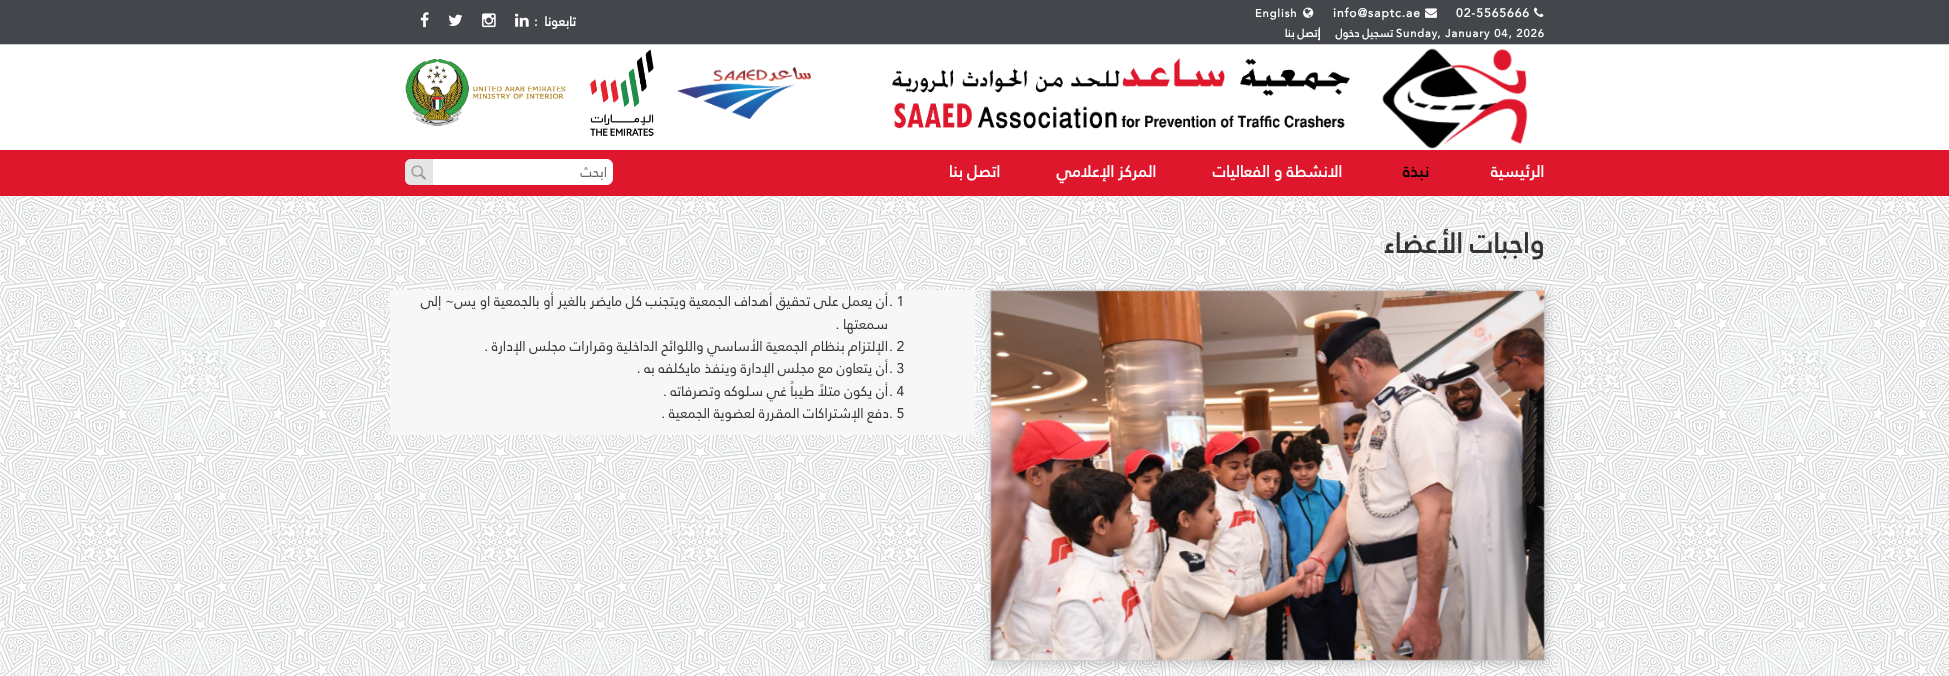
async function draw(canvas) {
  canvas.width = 1949;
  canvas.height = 676;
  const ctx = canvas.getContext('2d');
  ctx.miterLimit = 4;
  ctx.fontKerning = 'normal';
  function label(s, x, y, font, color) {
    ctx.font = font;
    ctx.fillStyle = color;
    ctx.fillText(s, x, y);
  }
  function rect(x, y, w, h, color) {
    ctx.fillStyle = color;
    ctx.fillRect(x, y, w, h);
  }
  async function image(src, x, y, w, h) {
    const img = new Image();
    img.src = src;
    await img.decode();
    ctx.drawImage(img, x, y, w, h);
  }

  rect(0, 0, 1949, 676, '#43464b');
  rect(0, 44, 1949, 1, '#ccc');
  await image('assets/img1.png', 1534, 7, 10, 10);
  ctx.letterSpacing = '1px';
  label('02-5565666', 1456, 17, 'bold 12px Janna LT', '#fff');
  await image('assets/img2.png', 1425, 8, 12, 10);
  label('info@saptc.ae', 1333, 17, 'bold 12px Janna LT', '#fff');
  await image('assets/img3.png', 1303, 7, 11, 11);
  label('English', 1255, 17, 'bold 11px Janna LT', '#fff');
  label('Sunday, January 04, 2026', 1396, 37, 'bold 11px Janna LT', '#fff');
  ctx.letterSpacing = '0px';
  label('|', 1318, 37, '13px Janna LT', '#fff');
  ctx.letterSpacing = '1px';
  ctx.wordSpacing = '-1px';
  ctx.direction = 'rtl';
  label('تسجيل دخول', 1393, 37, 'bold 11px Janna LT', '#fff');
  label('إتصل بنا', 1320, 37, 'bold 11px Janna LT', '#fff');
  ctx.wordSpacing = '0px';
  label('تابعونا', 576, 26, 'bold 13px Janna LT', '#fff');
  ctx.direction = 'ltr';
  label(':', 534, 26, 'bold 13px Janna LT', '#fff');
  await image('assets/img4.png', 515, 13, 14, 14);
  await image('assets/img5.png', 482, 13, 14, 15);
  await image('assets/img6.png', 448, 14, 15, 12);
  await image('assets/img7.png', 420, 12, 9, 16);
  rect(0, 45, 1949, 105, '#fff');
  await image('assets/img8.png', 1382, 48, 146, 101);
  await image('assets/img9.png', 892, 58, 458, 71);
  await image('assets/img10.png', 677, 67, 134, 52);
  await image('assets/img11.png', 589, 49, 65, 87);
  await image('assets/img12.png', 405, 59, 161, 67);
  rect(0, 150, 1949, 46, '#de172c');
  ctx.letterSpacing = '0px';
  ctx.direction = 'rtl';
  label('الرئيسية', 1544, 177, 'bold 16px Janna LT', '#fff');
  label('نبذة', 1429, 177, 'bold 16px Janna LT', '#000');
  label('الانشطة و الفعاليات', 1342, 177, 'bold 16px Janna LT', '#fff');
  label('المركز الإعلامي', 1156, 177, 'bold 16px Janna LT', '#fff');
  label('اتصل بنا', 1000, 177, 'bold 16px Janna LT', '#fff');
  ctx.beginPath();
  ctx.roundRect(433.5, 159.5, 179, 25, [0, 5.5, 5.5, 0]);
  ctx.fill();
  ctx.strokeStyle = '#fff';
  ctx.stroke();
  label('ابحث', 607, 177, '14px Janna LT', '#666');
  ctx.fillStyle = '#e5e5e5';
  ctx.beginPath();
  ctx.roundRect(405, 159, 28, 26, [6, 0, 0, 6]);
  ctx.fill();
  await image('assets/img13.png', 411, 165, 15, 15);
  ctx.beginPath();
  ctx.roundRect(405.5, 159.5, 27, 25, [5.5, 0, 0, 5.5]);
  ctx.strokeStyle = '#e5e5e5';
  ctx.stroke();
  await image('assets/img14.png', 0, 196, 1949, 480);
  label('واجبات الأعضاء', 1544, 253, 'bold 28px Janna LT', '#333');
  ctx.fillStyle = '#00000033';
  ctx.filter = 'blur(6px)';
  ctx.beginPath();
  ctx.rect(991, 292, 555, 371);
  ctx.fill();
  ctx.filter = 'none';
  ctx.strokeStyle = '#ccc';
  ctx.strokeRect(990.5, 290.5, 554, 370);
  await image('assets/img15.png', 990, 290, 555, 371);
  rect(390, 290, 585, 145, '#f7f7f7');
  ctx.direction = 'ltr';
  label('. 1', 889, 306, '14px Janna LT', '#333');
  ctx.direction = 'rtl';
  label('أن يعمل على تحقيق أهداف الجمعية ويتجنب كل مايضر بالغير أو بالجمعية او يس~ إلى', 888, 306, '14px Janna LT', '#333');
  label('سمعتها .', 888, 329, '14px Janna LT', '#333');
  ctx.direction = 'ltr';
  label('. 2', 889, 351, '14px Janna LT', '#333');
  ctx.direction = 'rtl';
  label('الإلتزام بنظام الجمعية الأساسي واللوائح الداخلية وقرارات مجلس الإدارة .', 888, 351, '14px Janna LT', '#333');
  ctx.direction = 'ltr';
  label('. 3', 889, 373, '14px Janna LT', '#333');
  ctx.direction = 'rtl';
  label('أن يتعاون مع مجلس الإدارة وينفذ مايكلفه به .', 888, 373, '14px Janna LT', '#333');
  ctx.direction = 'ltr';
  label('. 4', 889, 396, '14px Janna LT', '#333');
  ctx.direction = 'rtl';
  label('أن يكون متلاً طيباً غي سلوكه وتصرفاته .', 888, 396, '14px Janna LT', '#333');
  ctx.direction = 'ltr';
  label('. 5', 889, 418, '14px Janna LT', '#333');
  ctx.direction = 'rtl';
  label('دفع الإشتراكات المقررة لعضوية الجمعية .', 889, 418, '14px Janna LT', '#333');
}

draw(document.querySelector('canvas'));
